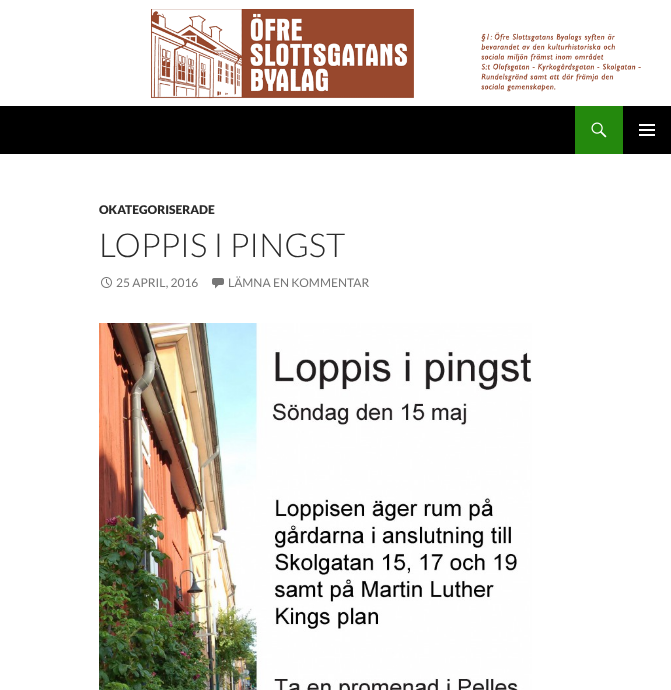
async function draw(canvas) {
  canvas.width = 671;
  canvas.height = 690;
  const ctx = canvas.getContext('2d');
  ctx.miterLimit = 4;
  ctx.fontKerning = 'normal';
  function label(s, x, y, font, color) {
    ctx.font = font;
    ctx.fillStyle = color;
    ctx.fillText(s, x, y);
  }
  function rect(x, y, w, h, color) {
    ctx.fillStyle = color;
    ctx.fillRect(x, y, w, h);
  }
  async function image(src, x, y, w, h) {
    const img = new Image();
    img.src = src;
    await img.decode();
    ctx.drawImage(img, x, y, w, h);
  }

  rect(0, 0, 671, 690, '#fff');
  await image('assets/img1.png', 151, 9, 490, 90);
  rect(0, 106, 671, 48, '#000');
  rect(575, 106, 48, 48, '#24890d');
  await image('assets/img2.png', 591, 122, 16, 16);
  await image('assets/img3.png', 639, 124, 16, 12);
  label('OKATEGORISERADE', 99, 214, '900 12px Lato', '#2b2b2b');
  label('LOPPIS I PINGST', 99, 257, '300 33px Lato', '#2b2b2b');
  await image('assets/img4.png', 101, 277, 11, 11);
  label('25 APRIL, 2016', 116, 287, '12px Lato', '#767676');
  await image('assets/img5.png', 212, 278, 12, 11);
  label('LÄMNA EN KOMMENTAR', 228, 287, '12px Lato', '#767676');
  await image('assets/img6.png', 99, 323, 433, 367);
}

draw(document.querySelector('canvas'));
